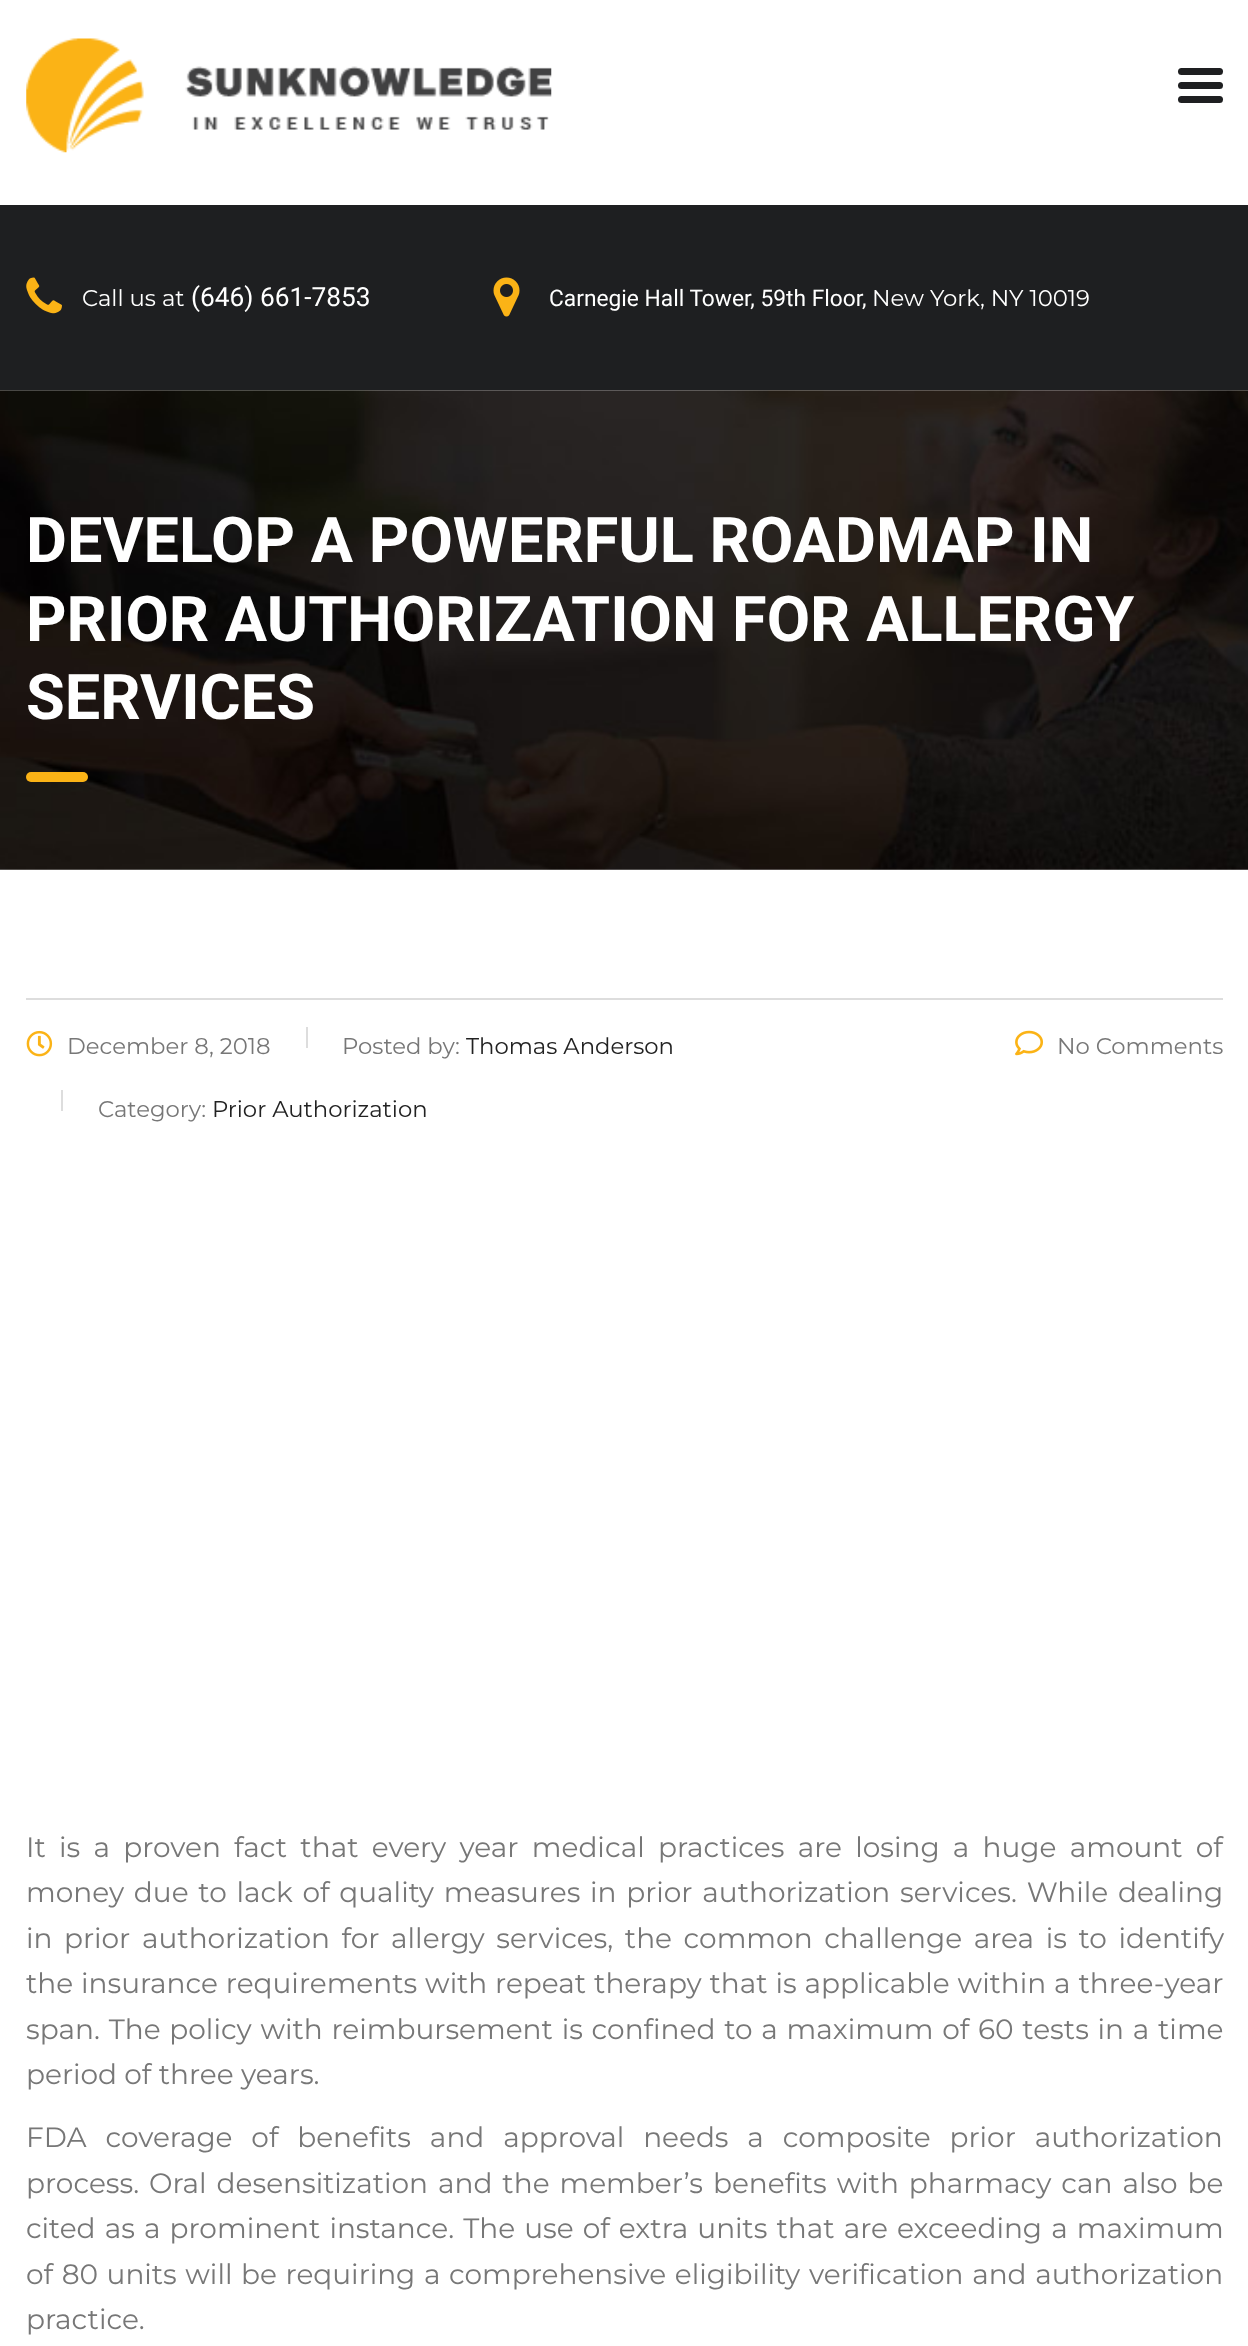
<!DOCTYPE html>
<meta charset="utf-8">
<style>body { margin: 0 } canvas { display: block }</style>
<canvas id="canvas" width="1248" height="2346"></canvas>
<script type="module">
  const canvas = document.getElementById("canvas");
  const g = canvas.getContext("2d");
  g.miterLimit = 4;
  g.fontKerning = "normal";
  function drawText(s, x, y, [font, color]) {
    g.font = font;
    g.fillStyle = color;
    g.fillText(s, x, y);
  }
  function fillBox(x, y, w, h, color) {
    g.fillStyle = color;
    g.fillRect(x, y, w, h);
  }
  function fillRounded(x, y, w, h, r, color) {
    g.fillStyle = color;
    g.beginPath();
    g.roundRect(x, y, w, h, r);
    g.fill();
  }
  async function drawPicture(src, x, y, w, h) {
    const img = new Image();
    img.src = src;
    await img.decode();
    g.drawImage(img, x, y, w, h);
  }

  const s1 = ["22.75px Montserrat", "#FFFFFF"];
  const s2 = ["26.25px Roboto", "#FFFFFF"];
  const s3 = ["22.75px Roboto", "#FFFFFF"];
  const s4 = ["bold 63px Roboto", "#FFFFFF"];
  const s5 = ["22.75px Montserrat", "#777777"];
  const s6 = ["22.75px Montserrat", "#222222"];
  const s7 = ["28px Montserrat", "#777777"];

  fillBox(0, 0, 1248, 2346, "#FFFFFF");
  await drawPicture("pic1.png", 26, 38, 526, 115);
  fillRounded(1178, 82, 45, 7, 3.5, "#1E1F21");
  fillRounded(1178, 68, 45, 7, 3.5, "#1E1F21");
  fillRounded(1178, 96, 45, 7, 3.5, "#1E1F21");
  fillBox(0, 205, 1248, 185, "#1E1F21");
  await drawPicture("pic2.png", 26, 277, 36, 37);
  drawText("Call us at", 82, 306, s1);
  drawText("(646) 661-7853", 191, 306, s2);
  await drawPicture("pic3.png", 493, 277, 27, 40);
  drawText("Carnegie Hall Tower, 59th Floor,", 549, 306, s3);
  drawText("New York, NY 10019", 872, 306, s1);
  await drawPicture("pic4.png", 0, 390, 1248, 480);
  drawText("DEVELOP A POWERFUL ROADMAP IN", 26, 562, s4);
  drawText("PRIOR AUTHORIZATION FOR ALLERGY", 26, 641, s4);
  drawText("SERVICES", 26, 719, s4);
  fillRounded(26, 772, 62, 10, 5, "#FBB316");
  fillBox(26, 998, 1197, 2, "#DDDDDD");
  await drawPicture("pic5.png", 26, 1030, 27, 27);
  drawText("December 8, 2018", 67, 1054, s5);
  fillBox(306, 1027, 2, 21, "#DDDDDD");
  drawText("Posted by:", 342, 1054, s5);
  drawText("Thomas Anderson", 466, 1054, s6);
  fillBox(61, 1090, 2, 21, "#DDDDDD");
  drawText("Category:", 98, 1117, s5);
  drawText("Prior Authorization", 212, 1117, s6);
  await drawPicture("pic6.png", 1015, 1030, 28, 26);
  drawText("No Comments", 1057, 1054, s5);
  g.wordSpacing = "5.9px";
  drawText("It is a proven fact that every year medical practices are losing a huge amount of", 26, 1857, s7);
  g.wordSpacing = "2.4px";
  drawText("money due to lack of quality measures in prior authorization services. While dealing", 26, 1902, s7);
  g.wordSpacing = "4.25px";
  drawText("in prior authorization for allergy services, the common challenge area is to identify", 26, 1948, s7);
  g.wordSpacing = "0.5px";
  drawText("the insurance requirements with repeat therapy that is applicable within a three-year", 26, 1993, s7);
  g.wordSpacing = "1.4px";
  drawText("span. The policy with reimbursement is confined to a maximum of 60 tests in a time", 26, 2039, s7);
  g.wordSpacing = "0px";
  drawText("period of three years.", 26, 2084, s7);
  g.wordSpacing = "11.5px";
  drawText("FDA coverage of benefits and approval needs a composite prior authorization", 26, 2147, s7);
  g.wordSpacing = "2.6px";
  drawText("process. Oral desensitization and the member’s benefits with pharmacy can also be", 26, 2193, s7);
  g.wordSpacing = "1.75px";
  drawText("cited as a prominent instance. The use of extra units that are exceeding a maximum", 26, 2238, s7);
  g.wordSpacing = "1.25px";
  drawText("of 80 units will be requiring a comprehensive eligibility verification and authorization", 26, 2284, s7);
  g.wordSpacing = "0px";
  drawText("practice.", 26, 2329, s7);
</script>
